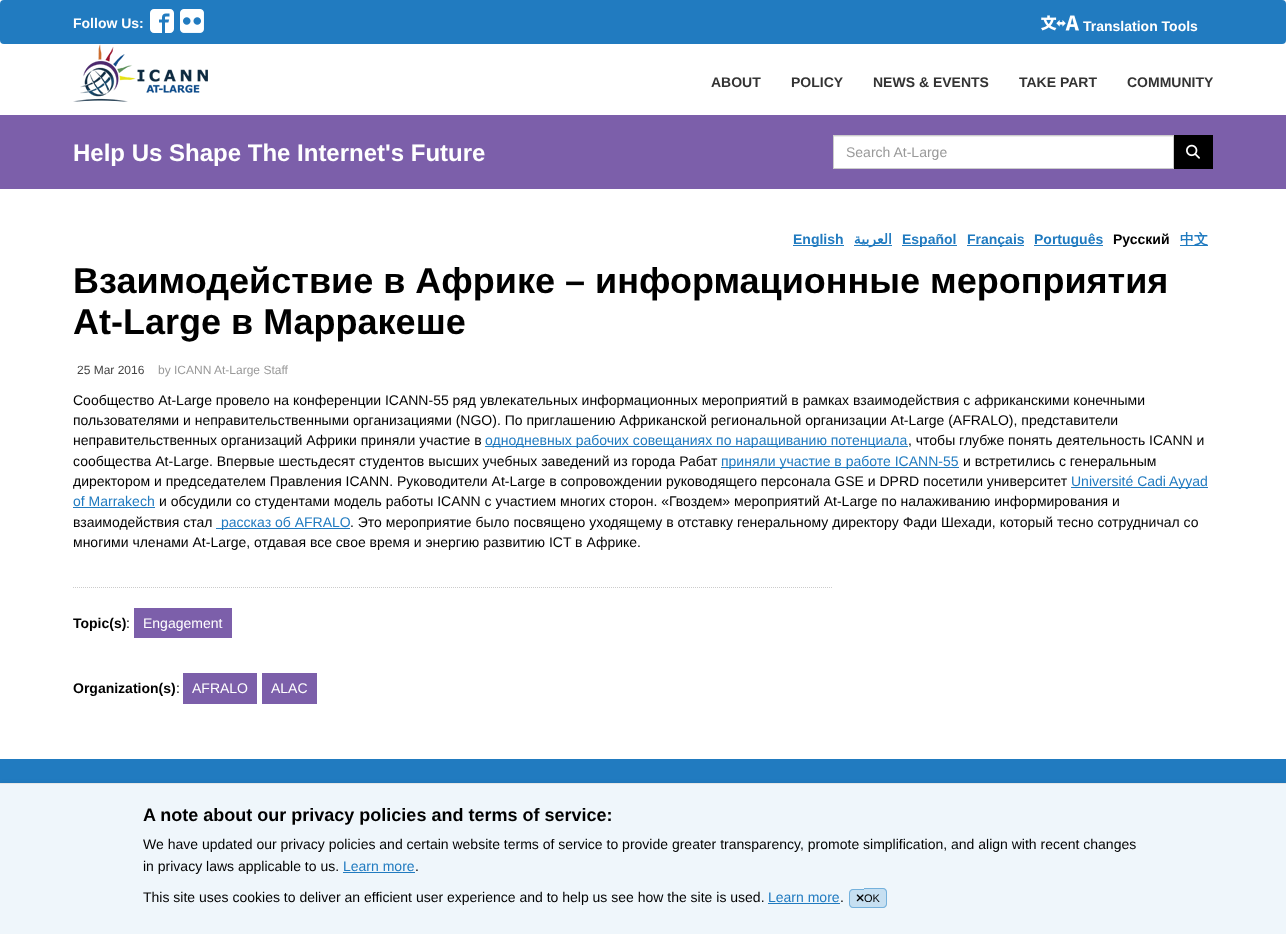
<!DOCTYPE html>
<meta charset="utf-8">
<style>body { margin: 0 } canvas { display: block }</style>
<canvas id="canvas" width="1286" height="934"></canvas>
<script type="module">
  const canvas = document.getElementById("canvas");
  const g = canvas.getContext("2d");
  g.miterLimit = 4;
  g.fontKerning = "normal";
  function drawText(s, x, y, [font, color]) {
    g.font = font;
    g.fillStyle = color;
    g.fillText(s, x, y);
  }
  function fillBox(x, y, w, h, color) {
    g.fillStyle = color;
    g.fillRect(x, y, w, h);
  }
  function fillRounded(x, y, w, h, r, color) {
    g.fillStyle = color;
    g.beginPath();
    g.roundRect(x, y, w, h, r);
    g.fill();
  }
  async function drawPicture(src, x, y, w, h) {
    const img = new Image();
    img.src = src;
    await img.decode();
    g.drawImage(img, x, y, w, h);
  }

  const s1 = ["bold 14px Liberation Sans", "#FFFFFF"];
  const s2 = ["bold 14px Liberation Sans", "#333333"];
  const s3 = ["bold 24px Liberation Sans", "#FFFFFF"];
  const s4 = ["14px Liberation Sans", "#999999"];
  const s5 = ["bold 14px Liberation Sans", "#217BC0"];
  const s6 = ["bold 14px DejaVu Sans", "#217BC0"];
  const s7 = ["bold 14px Liberation Sans", "#000000"];
  const s8 = ["bold 14px WenQuanYi Zen Hei", "#217BC0"];
  const s9 = ["bold 36px Liberation Sans", "#000000"];
  const s10 = ["12px Liberation Sans", "#454545"];
  const s11 = ["12px Liberation Sans", "#999999"];
  const s12 = ["14px Liberation Sans", "#000000"];
  const s13 = ["14px Liberation Sans", "#217BC0"];
  const s14 = ["14px Liberation Sans", "#FFFFFF"];
  const s15 = ["bold 18px Liberation Sans", "#000000"];
  const s16 = ["11px Liberation Sans", "#000000"];

  fillBox(0, 0, 1286, 934, "#FFFFFF");
  fillRounded(0, 0, 1286, 44, 4, "#217BC0");
  drawText("Follow Us:", 73, 28, s1);
  await drawPicture("pic1.png", 150, 9, 24, 24);
  await drawPicture("pic2.png", 180, 9, 24, 24);
  await drawPicture("pic3.png", 1041, 15, 38, 16);
  drawText("Translation Tools", 1083, 31, s1);
  await drawPicture("pic4.png", 73, 44, 135, 58);
  drawText("ABOUT", 711, 87, s2);
  drawText("POLICY", 791, 87, s2);
  drawText("NEWS & EVENTS", 873, 87, s2);
  drawText("TAKE PART", 1019, 87, s2);
  drawText("COMMUNITY", 1127, 87, s2);
  fillBox(0, 115, 1286, 74, "#7C5FAA");
  drawText("Help Us Shape The Internet's Future", 73, 161, s3);
  fillBox(834, 137, 339, 31, "#FFFFFF");
  fillBox(834, 136, 339, 1, "#ECECEC");
  g.strokeStyle = "#CCCCCC";
  g.strokeRect(833.5, 135.5, 340, 33);
  drawText("Search At-Large", 846, 157, s4);
  fillBox(1174, 135, 39, 34, "#000000");
  await drawPicture("pic5.png", 1186, 144, 14, 15);
  fillBox(793, 245, 51, 1, "#217BC0");
  drawText("English", 793, 244, s5);
  fillBox(854, 245, 38, 1, "#217BC0");
  g.direction = "rtl";
  drawText("العربية", 892, 244, s6);
  fillBox(902, 245, 55, 1, "#217BC0");
  g.direction = "ltr";
  drawText("Español", 902, 244, s5);
  fillBox(967, 245, 57, 1, "#217BC0");
  drawText("Français", 967, 244, s5);
  fillBox(1034, 245, 69, 1, "#217BC0");
  drawText("Português", 1034, 244, s5);
  drawText("Pусский", 1113, 244, s7);
  fillBox(1180, 245, 28, 1, "#217BC0");
  drawText("中文", 1180, 244, s8);
  drawText("Взаимодействие в Африке – информационные мероприятия", 73, 293, s9);
  drawText("At-Large в Марракеше", 73, 334, s9);
  drawText("25 Mar 2016", 77, 374, s10);
  drawText("by ICANN At-Large Staff", 158, 374, s11);
  drawText("Сообщество At-Large провело на конференции ICANN-55 ряд увлекательных информационных мероприятий в рамках взаимодействия с африканскими конечными", 73, 405, s12);
  drawText("пользователями и неправительственными организациями (NGO). По приглашению Африканской региональной организации At-Large (AFRALO), представители", 73, 425, s12);
  drawText("неправительственных организаций Африки приняли участие в", 73, 445, s12);
  fillBox(485, 446, 423, 1, "#217BC0");
  drawText("однодневных рабочих совещаниях по наращиванию потенциала", 485, 445, s13);
  drawText(", чтобы глубже понять деятельность ICANN и", 908, 445, s12);
  drawText("сообщества At-Large. Впервые шестьдесят студентов высших учебных заведений из города Рабат", 73, 466, s12);
  fillBox(721, 467, 238, 1, "#217BC0");
  drawText("приняли участие в работе ICANN-55", 721, 466, s13);
  drawText("и встретились с генеральным", 963, 466, s12);
  drawText("директором и председателем Правления ICANN. Руководители At-Large в сопровождении руководящего персонала GSE и DPRD посетили университет", 73, 486, s12);
  fillBox(1071, 487, 137, 1, "#217BC0");
  drawText("Université Cadi Ayyad", 1071, 486, s13);
  drawText("of Marrakech", 73, 506, s13);
  fillBox(73, 507, 82, 1, "#217BC0");
  drawText("и обсудили со студентами модель работы ICANN с участием многих сторон. «Гвоздем» мероприятий At-Large по налаживанию информирования и", 159, 506, s12);
  drawText("взаимодействия стал", 73, 527, s12);
  fillBox(216, 528, 134, 1, "#217BC0");
  drawText("рассказ об AFRALO", 221, 527, s13);
  drawText(". Это мероприятие было посвящено уходящему в отставку генеральному директору Фади Шехади, который тесно сотрудничал со", 350, 527, s12);
  drawText("многими членами At-Large, отдавая все свое время и энергию развитию ICT в Африке.", 73, 547, s12);
  g.beginPath();
  g.moveTo(73, 587.5);
  g.lineTo(833, 587.5);
  g.setLineDash([1, 1]);
  g.stroke();
  drawText("Topic(s)", 73, 628, s7);
  drawText(":", 126, 628, s12);
  fillBox(134, 608, 98, 30, "#7C5FAA");
  drawText("Engagement", 143, 628, s14);
  drawText("Organization(s)", 73, 693, s7);
  drawText(":", 176, 693, s12);
  fillBox(183, 673, 74, 31, "#7C5FAA");
  drawText("AFRALO", 192, 693, s14);
  fillBox(262, 673, 55, 31, "#7C5FAA");
  drawText("ALAC", 271, 693, s14);
  fillBox(0, 759, 1286, 24, "#217BC0");
  g.fillStyle = "rgba(0, 0, 0, 0.05)";
  g.filter = "blur(1.5px)";
  g.beginPath();
  g.rect(0, 782, 1286, 151);
  g.fill();
  g.filter = "none";
  fillBox(0, 784, 1286, 150, "#EFF6FB");
  fillBox(0, 783, 1286, 1, "#E6E6E6");
  drawText("A note about our privacy policies and terms of service:", 143, 821, s15);
  drawText("We have updated our privacy policies and certain website terms of service to provide greater transparency, promote simplification, and align with recent changes", 143, 849, s12);
  drawText("in privacy laws applicable to us.", 143, 871, s12);
  drawText("Learn more", 343, 871, s13);
  fillBox(343, 872, 72, 1, "#217BC0");
  drawText(".", 415, 871, s12);
  drawText("This site uses cookies to deliver an efficient user experience and to help us see how the site is used.", 143, 902, s12);
  drawText("Learn more", 768, 902, s13);
  fillBox(768, 903, 72, 1, "#217BC0");
  drawText(".", 840, 902, s12);
  g.fillStyle = "#C6DFF1";
  g.beginPath();
  g.roundRect(849, 889, 15, 19, [4, 0, 0, 4]);
  g.fill();
  g.fillStyle = "#75B1DC";
  g.beginPath();
  g.moveTo(853, 889);
  g.lineTo(864, 889);
  g.lineTo(864, 908);
  g.lineTo(853, 908);
  g.bezierCurveTo(851, 908, 849, 906, 849, 904);
  g.lineTo(849, 893);
  g.bezierCurveTo(849, 891, 851, 889, 853, 889);
  g.closePath();
  g.moveTo(853, 890);
  g.lineTo(864, 890);
  g.lineTo(864, 907);
  g.lineTo(853, 907);
  g.bezierCurveTo(851.5, 907, 850, 905.5, 850, 904);
  g.lineTo(850, 893);
  g.bezierCurveTo(850, 891.5, 851.5, 890, 853, 890);
  g.closePath();
  g.fill("evenodd");
  g.fillStyle = "#C6DFF1";
  g.beginPath();
  g.roundRect(864, 888, 23, 20, [0, 4, 4, 0]);
  g.fill();
  g.fillStyle = "#75B1DC";
  g.beginPath();
  g.moveTo(864, 888);
  g.lineTo(883, 888);
  g.bezierCurveTo(885, 888, 887, 890, 887, 892);
  g.lineTo(887, 904);
  g.bezierCurveTo(887, 906, 885, 908, 883, 908);
  g.lineTo(864, 908);
  g.closePath();
  g.moveTo(864, 889);
  g.lineTo(883, 889);
  g.bezierCurveTo(884.5, 889, 886, 890.5, 886, 892);
  g.lineTo(886, 904);
  g.bezierCurveTo(886, 905.5, 884.5, 907, 883, 907);
  g.lineTo(864, 907);
  g.closePath();
  g.fill("evenodd");
  await drawPicture("pic6.png", 856, 894, 8, 8);
  drawText("OK", 864, 902, s16);
</script>
